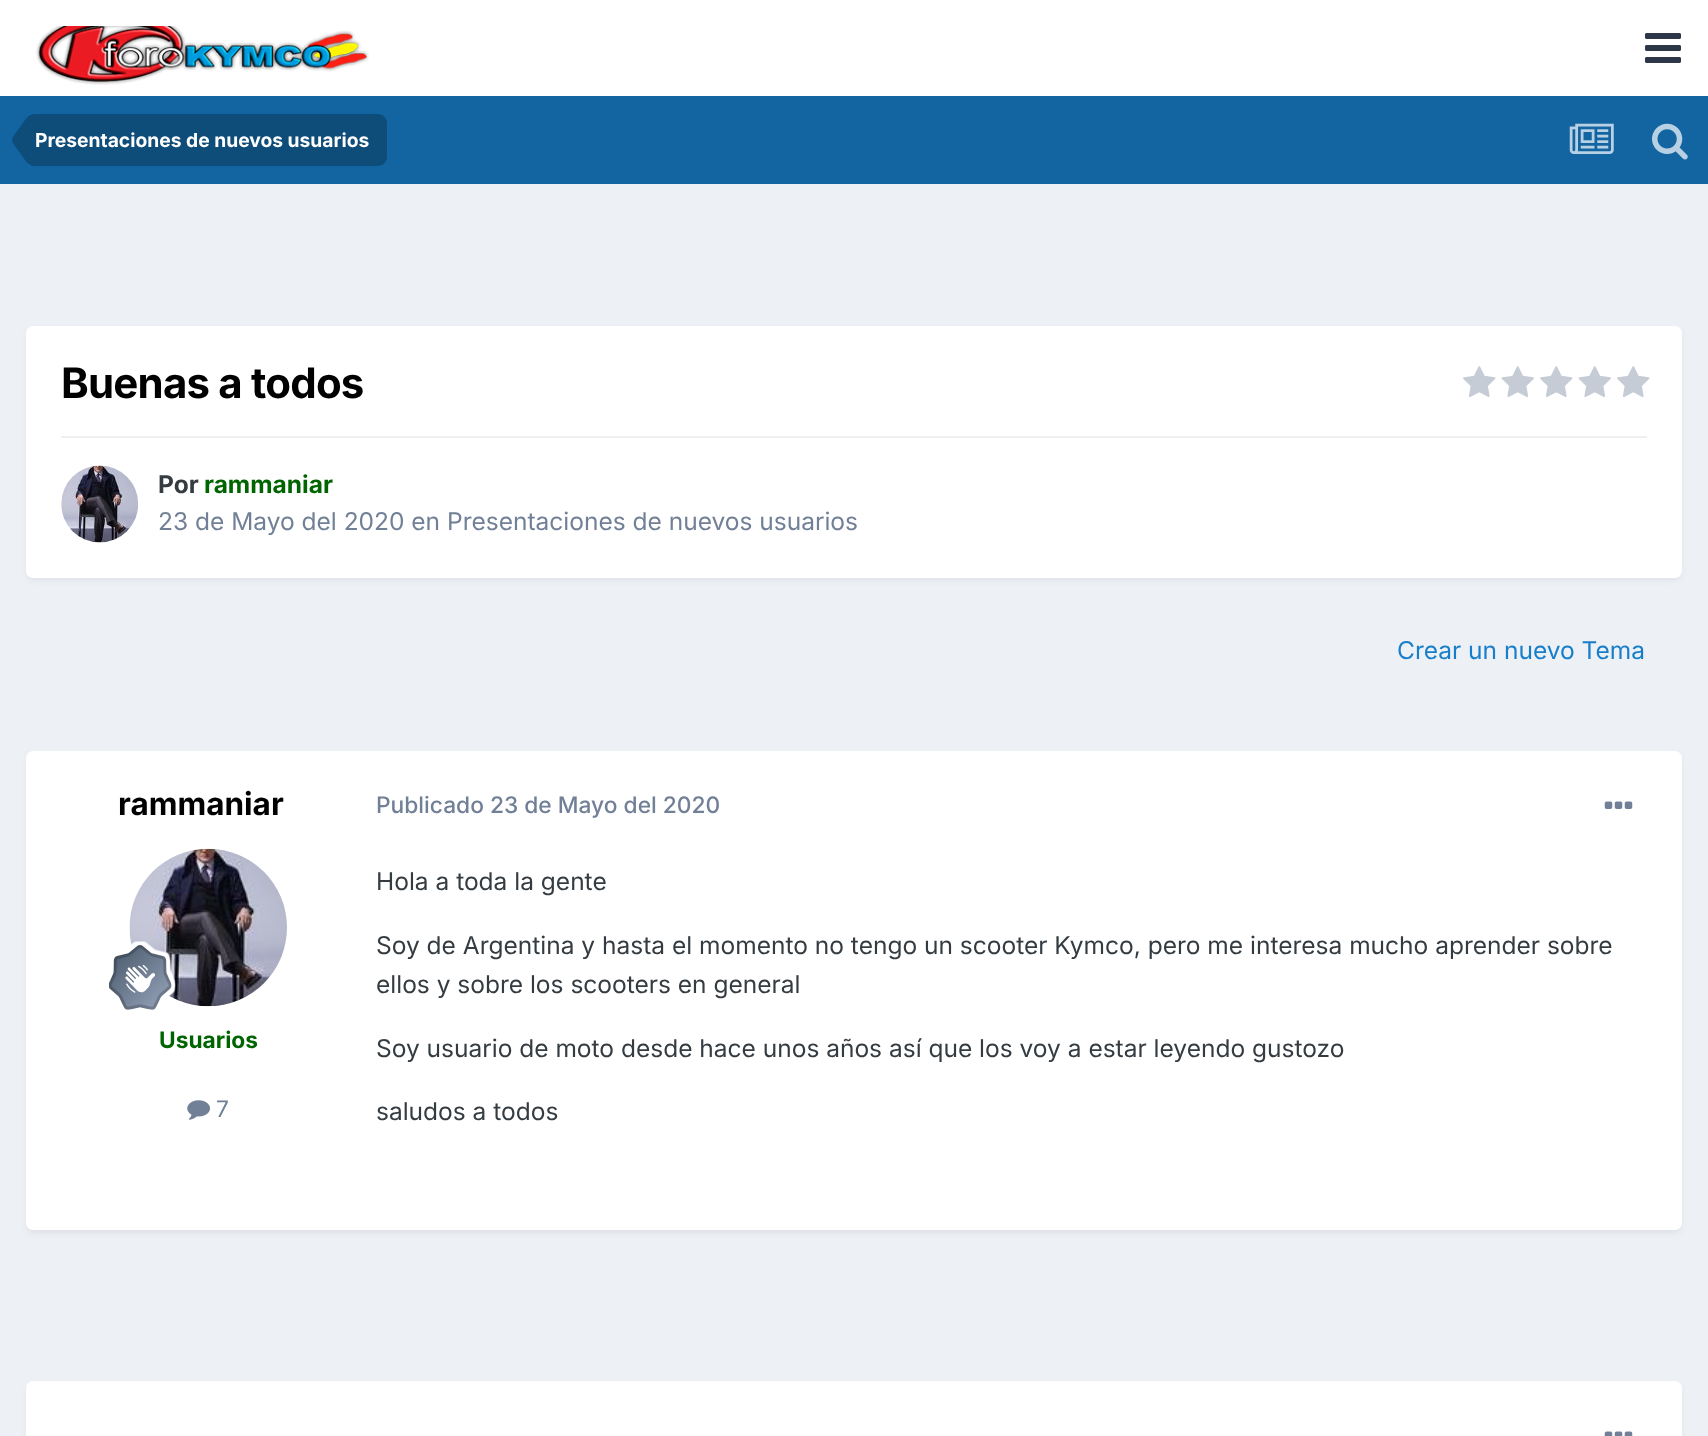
<!DOCTYPE html>
<meta charset="utf-8">
<style>body { margin: 0 } canvas { display: block }</style>
<canvas id="canvas" width="1708" height="1436"></canvas>
<script type="module">
  const canvas = document.getElementById("canvas");
  const g = canvas.getContext("2d");
  g.miterLimit = 4;
  g.fontKerning = "normal";
  function drawText(s, x, y, [font, color]) {
    g.font = font;
    g.fillStyle = color;
    g.fillText(s, x, y);
  }
  function fillBox(x, y, w, h, color) {
    g.fillStyle = color;
    g.fillRect(x, y, w, h);
  }
  function fillRounded(x, y, w, h, r, color) {
    g.fillStyle = color;
    g.beginPath();
    g.roundRect(x, y, w, h, r);
    g.fill();
  }
  async function drawPicture(src, x, y, w, h) {
    const img = new Image();
    img.src = src;
    await img.decode();
    g.drawImage(img, x, y, w, h);
  }

  const s1 = ["bold 19.25px Inter", "#FFFFFF"];
  const s2 = ["bold 42px Inter", "#000000"];
  const s3 = ["bold 24.5px Inter", "#353C41"];
  const s4 = ["bold 24.5px Inter", "#006400"];
  const s5 = ["24.5px Inter", "#718096"];
  const s6 = ["24.5px Inter", "#177EC9"];
  const s7 = ["bold 31.5px Inter", "#000000"];
  const s8 = ["bold 22.75px Inter", "#006400"];
  const s9 = ["22.75px Inter", "#718096"];
  const s10 = ["500 22.75px Inter", "#718096"];
  const s11 = ["24.5px Inter", "#353C41"];

  fillBox(0, 0, 1708, 1436, "#EDF0F4");
  fillBox(0, 0, 1708, 96, "#FFFFFF");
  await drawPicture("pic1.png", 36, 26, 333, 59);
  await drawPicture("pic2.png", 1645, 33, 36, 30);
  fillBox(0, 96, 1708, 88, "#1265A1");
  g.fillStyle = "#0E4C79";
  g.beginPath();
  g.roundRect(35, 114, 352, 52, [0, 9, 9, 0]);
  g.fill();
  g.beginPath();
  g.moveTo(35, 140);
  g.lineTo(35, 166);
  g.bezierCurveTo(31, 166, 27.5, 164, 25, 160);
  g.lineTo(12.5, 142.5);
  g.lineTo(12, 140);
  g.closePath();
  g.moveTo(35, 140);
  g.lineTo(12, 140);
  g.lineTo(12.5, 137.5);
  g.lineTo(25, 120);
  g.bezierCurveTo(27.5, 116, 31, 114, 35, 114);
  g.closePath();
  g.fill();
  drawText("Presentaciones de nuevos usuarios", 35, 147, s1);
  await drawPicture("pic3.png", 1569, 123, 45, 31);
  await drawPicture("pic4.png", 1652, 123, 36, 37);
  g.fillStyle = "rgba(45, 55, 72, 0.1)";
  g.filter = "blur(3.5px)";
  g.beginPath();
  g.roundRect(28, 331, 1652, 248, 5);
  g.fill();
  g.filter = "none";
  fillRounded(26, 326, 1656, 252, 7, "#FFFFFF");
  g.letterSpacing = "-0.8px";
  drawText("Buenas a todos", 61, 398, s2);
  await drawPicture("pic5.png", 1463, 366, 33, 31);
  await drawPicture("pic6.png", 1501, 366, 33, 31);
  await drawPicture("pic5.png", 1540, 366, 33, 31);
  await drawPicture("pic6.png", 1578, 366, 33, 31);
  await drawPicture("pic5.png", 1617, 366, 33, 31);
  fillBox(61, 436, 1586, 2, "#EFEFF0");
  await drawPicture("pic7.png", 61, 465, 78, 78);
  g.letterSpacing = "0px";
  drawText("Por", 158, 493, s3);
  drawText("rammaniar", 204, 493, s4);
  drawText("23 de Mayo del 2020 en Presentaciones de nuevos usuarios", 158, 530, s5);
  drawText("Crear un nuevo Tema", 1397, 659, s6);
  g.fillStyle = "rgba(45, 55, 72, 0.1)";
  g.filter = "blur(3.5px)";
  g.beginPath();
  g.roundRect(28, 756, 1652, 476, 5);
  g.fill();
  g.filter = "none";
  fillRounded(26, 751, 1656, 479, 7, "#FFFFFF");
  drawText("rammaniar", 118, 815, s7);
  await drawPicture("pic8.png", 129, 848, 158, 159);
  await drawPicture("pic9.png", 109, 941, 67, 69);
  drawText("Usuarios", 159, 1048, s8);
  await drawPicture("pic10.png", 187, 1100, 23, 20);
  drawText("7", 216, 1117, s9);
  drawText("Publicado 23 de Mayo del 2020", 376, 813, s10);
  await drawPicture("pic11.png", 1604, 801, 29, 8);
  drawText("Hola a toda la gente", 376, 890, s11);
  drawText("Soy de Argentina y hasta el momento no tengo un scooter Kymco, pero me interesa mucho aprender sobre", 376, 954, s11);
  drawText("ellos y sobre los scooters en general", 376, 993, s11);
  drawText("Soy usuario de moto desde hace unos años así que los voy a estar leyendo gustozo", 376, 1057, s11);
  drawText("saludos a todos", 376, 1120, s11);
  g.fillStyle = "rgba(45, 55, 72, 0.1)";
  g.filter = "blur(3.5px)";
  g.beginPath();
  g.roundRect(28, 1386, 1652, 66, 5);
  g.fill();
  g.filter = "none";
  fillRounded(26, 1381, 1656, 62, 7, "#FFFFFF");
  await drawPicture("pic12.png", 1604, 1431, 29, 5);
</script>
